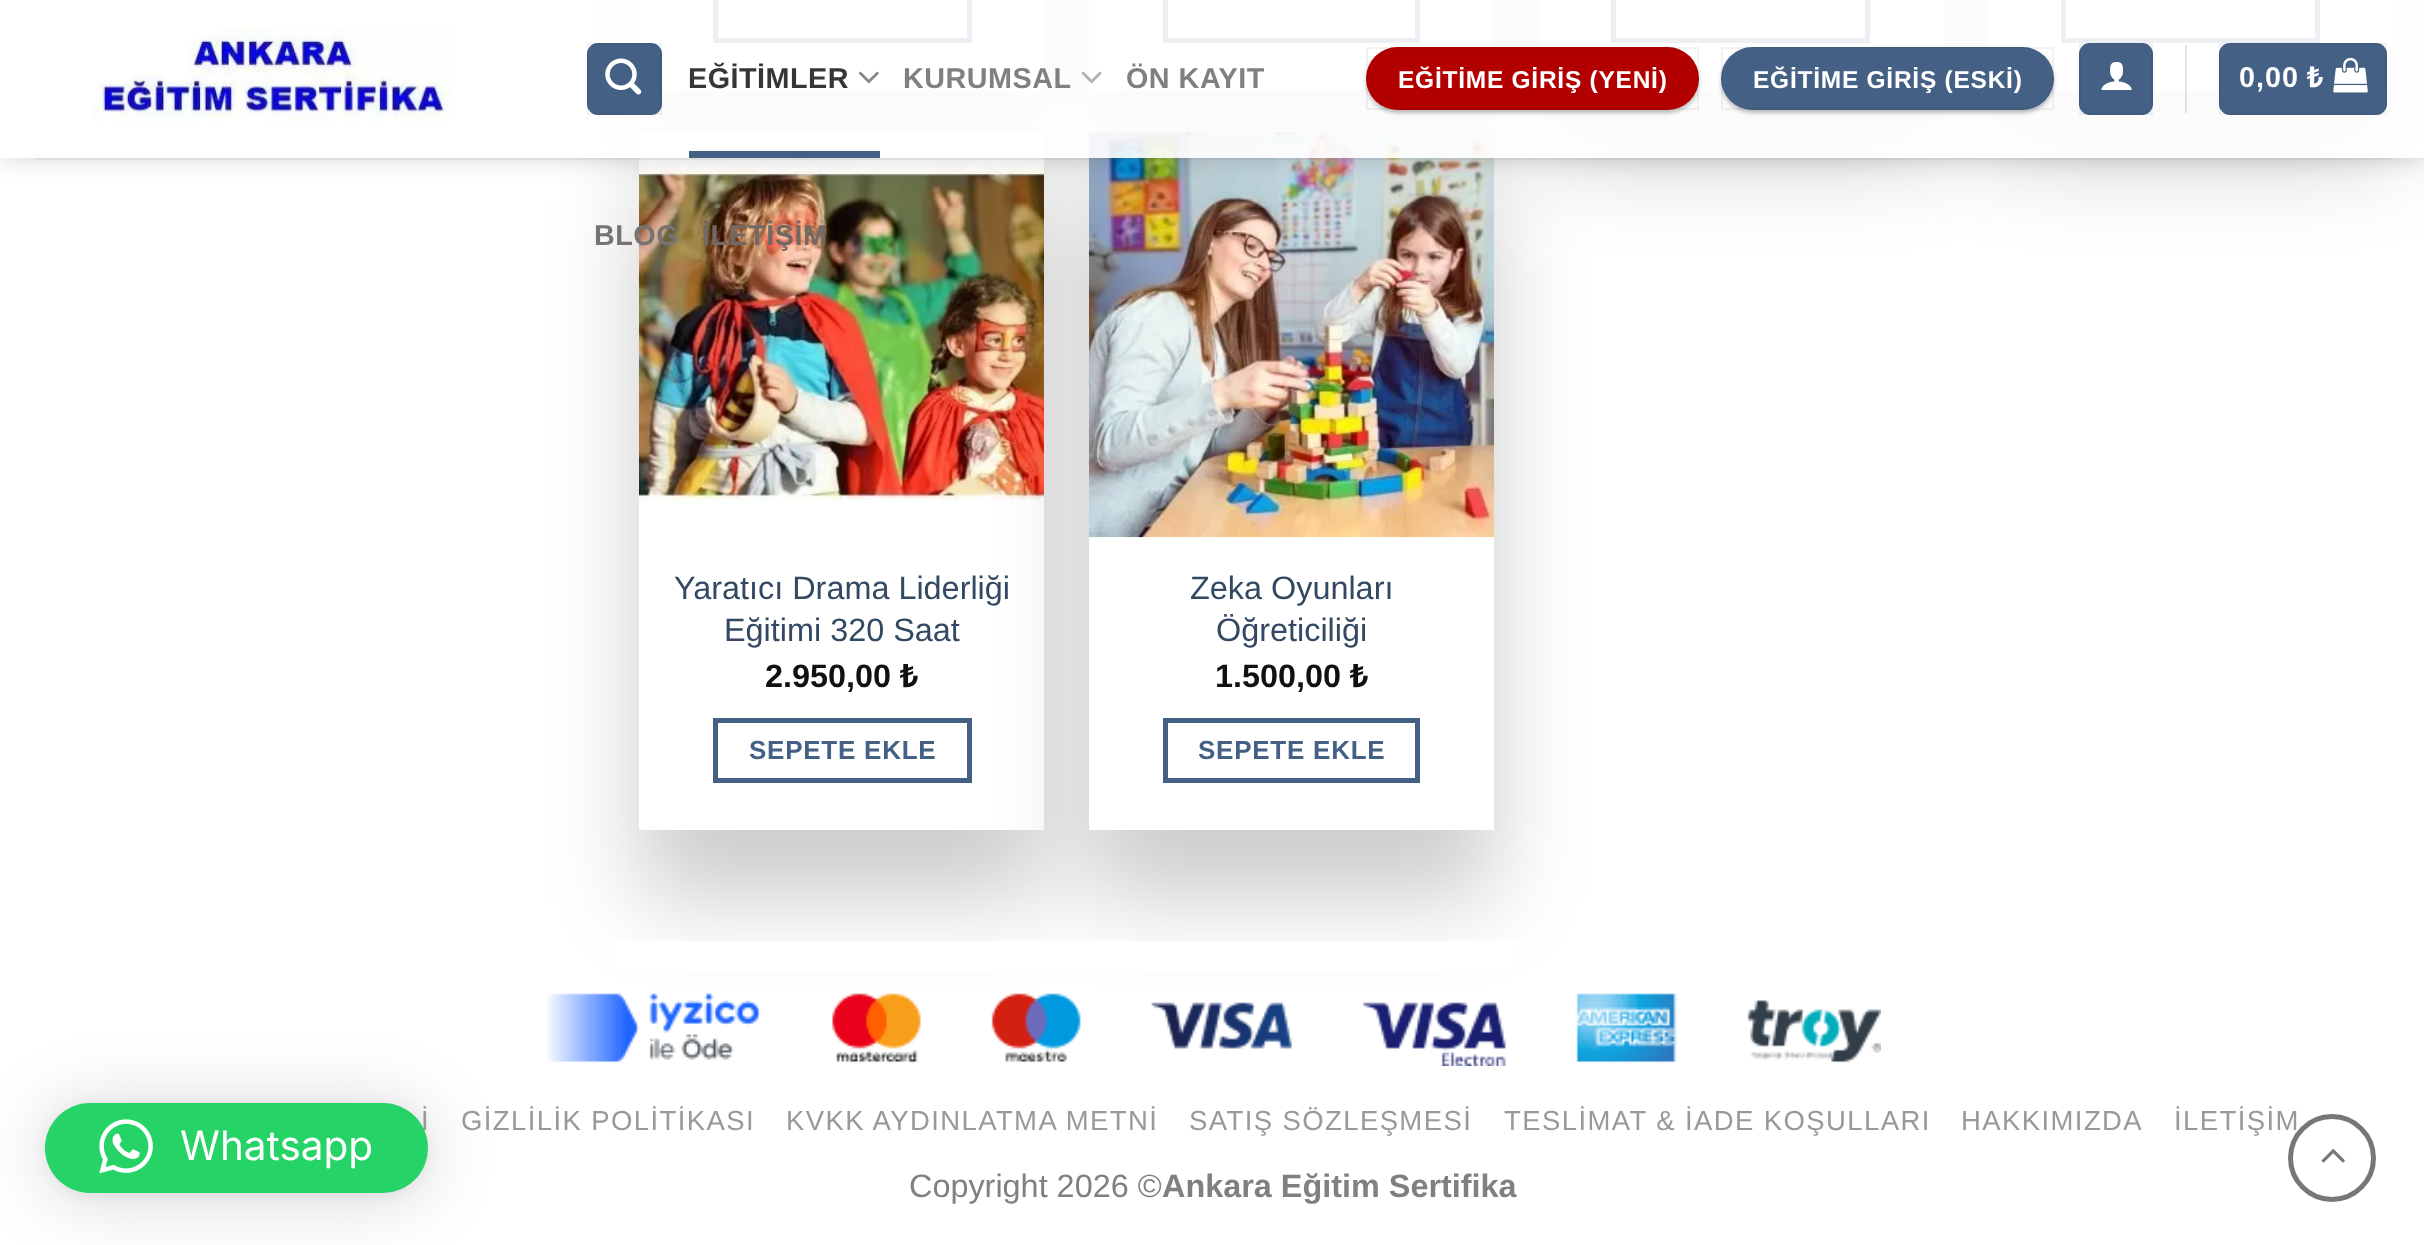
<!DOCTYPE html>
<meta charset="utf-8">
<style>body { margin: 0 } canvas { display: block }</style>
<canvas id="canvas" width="2424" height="1245"></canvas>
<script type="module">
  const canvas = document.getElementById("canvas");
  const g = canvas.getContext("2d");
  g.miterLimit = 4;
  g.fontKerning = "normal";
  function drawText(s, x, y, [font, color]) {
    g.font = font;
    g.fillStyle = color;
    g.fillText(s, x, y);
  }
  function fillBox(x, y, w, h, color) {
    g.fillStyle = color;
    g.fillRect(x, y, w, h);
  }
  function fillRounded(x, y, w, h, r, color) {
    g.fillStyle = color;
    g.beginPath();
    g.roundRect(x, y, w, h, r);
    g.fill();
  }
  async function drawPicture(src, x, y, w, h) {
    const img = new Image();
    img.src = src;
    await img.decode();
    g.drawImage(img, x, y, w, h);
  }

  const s1 = ["27.5px Liberation Sans", "#999999"];
  const s2 = ["40.5px Inter", "#FFFFFF"];
  const s3 = ["bold 28.75px Liberation Sans", "#363636"];
  const s4 = ["bold 28.75px Liberation Sans", "#808080"];
  const s5 = ["bold 28.75px Liberation Sans", "#767371"];
  const s6 = ["bold 28.75px Liberation Sans", "#726964"];
  const s7 = ["bold 24.5px Liberation Sans", "#FFFFFF"];
  const s8 = ["bold 28.75px Liberation Sans", "#FFFFFF"];
  const s9 = ["bold 28.75px Noto Sans", "#FFFFFF"];
  const s10 = ["32.4px Liberation Sans", "#334862"];
  const s11 = ["bold 32.4px Liberation Sans", "#111111"];
  const s12 = ["bold 32.4px Noto Sans", "#111111"];
  const s13 = ["bold 26px Liberation Sans", "#446084"];
  const s14 = ["32.4px Liberation Sans", "#808080"];
  const s15 = ["bold 32.4px Liberation Sans", "#808080"];

  fillBox(0, 0, 2424, 1245, "#FFFFFF");
  g.fillStyle = "rgba(0, 0, 0, 0.16)";
  g.filter = "blur(36px)";
  g.beginPath();
  g.roundRect(45, 1107, 383, 90, 45);
  g.fill();
  g.filter = "none";
  g.fillStyle = "rgba(0, 0, 0, 0.06)";
  g.filter = "blur(7px)";
  g.beginPath();
  g.roundRect(45, 1105, 383, 90, 45);
  g.fill();
  g.filter = "none";
  g.letterSpacing = "1.4px";
  drawText("İ", 421, 1130, s1);
  fillRounded(45, 1103, 383, 90, 45, "#25D366");
  await drawPicture("pic1.png", 99, 1119, 54, 55);
  g.letterSpacing = "0px";
  drawText("Whatsapp", 180, 1160, s2);
  g.save();
  g.beginPath();
  g.moveTo(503, 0);
  g.lineTo(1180, 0);
  g.lineTo(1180, 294);
  g.lineTo(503, 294);
  g.closePath();
  g.moveTo(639, -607);
  g.lineTo(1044, -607);
  g.lineTo(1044, 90);
  g.lineTo(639, 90);
  g.closePath();
  g.clip("evenodd");
  g.fillStyle = "rgba(0, 0, 0, 0.2)";
  g.filter = "blur(45px)";
  g.beginPath();
  g.rect(639, -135, 405, 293);
  g.fill();
  g.filter = "none";
  g.restore();
  g.strokeStyle = "#446084";
  g.lineWidth = 5;
  g.strokeRect(715.5, -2.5, 254, 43);
  g.fillStyle = "rgba(0, 0, 0, 0.2)";
  g.filter = "blur(45px)";
  g.beginPath();
  g.rect(1089, -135, 405, 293);
  g.fill();
  g.filter = "none";
  fillBox(1089, 0, 405, 90, "#FFFFFF");
  g.strokeRect(1165.5, -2.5, 252, 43);
  g.fillStyle = "rgba(0, 0, 0, 0.2)";
  g.filter = "blur(45px)";
  g.beginPath();
  g.rect(1539, -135, 405, 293);
  g.fill();
  g.filter = "none";
  fillBox(1539, 0, 405, 90, "#FFFFFF");
  g.strokeRect(1613.5, -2.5, 254, 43);
  g.fillStyle = "rgba(0, 0, 0, 0.2)";
  g.filter = "blur(45px)";
  g.beginPath();
  g.rect(1987, -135, 405, 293);
  g.fill();
  g.filter = "none";
  fillBox(1987, 0, 405, 90, "#FFFFFF");
  g.strokeRect(2063.5, -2.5, 254, 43);
  g.fillStyle = "rgba(0, 0, 0, 0.2)";
  g.filter = "blur(45px)";
  g.beginPath();
  g.rect(639, 200, 405, 698);
  g.fill();
  g.filter = "none";
  await drawPicture("pic8.png", 639, 132, 405, 371);
  fillBox(639, 503, 405, 327, "#FFFFFF");
  g.strokeRect(715.5, 720.5, 254, 60);
  g.fillStyle = "rgba(0, 0, 0, 0.2)";
  g.filter = "blur(45px)";
  g.beginPath();
  g.rect(1089, 200, 405, 698);
  g.fill();
  g.filter = "none";
  fillBox(1089, 537, 405, 293, "#FFFFFF");
  await drawPicture("pic9.png", 1089, 132, 405, 406);
  g.save();
  g.beginPath();
  g.moveTo(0, 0);
  g.lineTo(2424, 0);
  g.lineTo(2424, 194);
  g.lineTo(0, 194);
  g.closePath();
  g.moveTo(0, 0);
  g.lineTo(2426, 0);
  g.lineTo(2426, 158);
  g.lineTo(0, 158);
  g.closePath();
  g.clip("evenodd");
  g.fillStyle = "rgba(0, 0, 0, 0.15)";
  g.filter = "blur(11px)";
  g.beginPath();
  g.rect(2, 2, 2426, 158);
  g.fill();
  g.filter = "none";
  g.restore();
  fillBox(0, 0, 2424, 158, "rgba(255, 255, 255, 0.9)");
  await drawPicture("pic2.png", 89, 27, 363, 95);
  fillRounded(587, 43, 75, 72, 11, "#446084");
  g.strokeStyle = "rgba(0, 0, 0, 0.05)";
  g.lineWidth = 2;
  g.strokeRect(588, 44, 73, 70);
  await drawPicture("pic3.png", 605, 58, 37, 37);
  g.letterSpacing = "0.5px";
  drawText("EĞİTİMLER", 688, 88, s3);
  await drawPicture("pic4.png", 858, 71, 21, 13);
  fillBox(689, 151, 191, 7, "#446084");
  drawText("KURUMSAL", 903, 88, s4);
  await drawPicture("pic5.png", 1081, 71, 21, 13);
  drawText("ÖN KAYIT", 1126, 88, s4);
  drawText("BLOG", 594, 245, s5);
  drawText("İLETİŞİM", 702, 245, s6);
  g.fillStyle = "rgba(0, 0, 0, 0.24)";
  g.filter = "blur(2px)";
  g.beginPath();
  g.roundRect(1366, 50, 333, 63, 31.5);
  g.fill();
  g.filter = "none";
  g.fillStyle = "rgba(0, 0, 0, 0.12)";
  g.filter = "blur(3.5px)";
  g.beginPath();
  g.roundRect(1370, 54, 324, 54, 27);
  g.fill();
  g.filter = "none";
  fillRounded(1366, 47, 333, 63, 31.5, "#B20000");
  g.strokeRect(1367, 48, 331, 61);
  g.letterSpacing = "0.75px";
  drawText("EĞİTİME GİRİŞ (YENİ)", 1398, 88, s7);
  g.fillStyle = "rgba(0, 0, 0, 0.24)";
  g.filter = "blur(2px)";
  g.beginPath();
  g.roundRect(1721, 50, 333, 63, 31.5);
  g.fill();
  g.filter = "none";
  g.fillStyle = "rgba(0, 0, 0, 0.12)";
  g.filter = "blur(3.5px)";
  g.beginPath();
  g.roundRect(1726, 54, 324, 54, 27);
  g.fill();
  g.filter = "none";
  fillRounded(1721, 47, 333, 63, 31.5, "#446084");
  g.strokeRect(1722, 48, 331, 61);
  drawText("EĞİTİME GİRİŞ (ESKİ)", 1753, 88, s7);
  fillRounded(2079, 43, 74, 72, 11, "#446084");
  g.strokeRect(2080, 44, 72, 70);
  await drawPicture("pic6.png", 2101, 61, 31, 29);
  fillBox(2185, 45, 2, 68, "rgba(0, 0, 0, 0.1)");
  fillRounded(2219, 43, 168, 72, 11, "#446084");
  g.strokeRect(2220, 44, 166, 70);
  g.letterSpacing = "1px";
  drawText("0,00", 2239, 87, s8);
  drawText("₺", 2307, 87, s9);
  await drawPicture("pic7.png", 2333, 57, 35, 36);
  fillBox(34, 158, 2358, 2, "rgba(119, 119, 119, 0.1)");
  g.letterSpacing = "0px";
  drawText("Yaratıcı Drama Liderliği", 674, 599, s10);
  drawText("Eğitimi 320 Saat", 724, 641, s10);
  drawText("2.950,00", 765, 687, s11);
  drawText("₺", 900, 687, s12);
  g.letterSpacing = "0.75px";
  drawText("SEPETE EKLE", 749, 759, s13);
  g.letterSpacing = "0px";
  drawText("Zeka Oyunları", 1190, 599, s10);
  drawText("Öğreticiliği", 1216, 641, s10);
  drawText("1.500,00", 1215, 687, s11);
  drawText("₺", 1350, 687, s12);
  g.strokeStyle = "#446084";
  g.lineWidth = 5;
  g.strokeRect(1165.5, 720.5, 252, 60);
  g.letterSpacing = "0.75px";
  drawText("SEPETE EKLE", 1198, 759, s13);
  fillBox(615, 941, 903, 31, "#FFFFFF");
  await drawPicture("pic10.png", 547, 993, 1334, 73);
  g.letterSpacing = "1.4px";
  drawText("GİZLİLİK POLİTİKASI", 461, 1130, s1);
  drawText("KVKK AYDINLATMA METNİ", 786, 1130, s1);
  drawText("SATIŞ SÖZLEŞMESİ", 1189, 1130, s1);
  drawText("TESLİMAT & İADE KOŞULLARI", 1504, 1130, s1);
  drawText("HAKKIMIZDA", 1961, 1130, s1);
  drawText("İLETİŞİM", 2174, 1130, s1);
  g.letterSpacing = "0px";
  drawText("Copyright 2026 ©", 909, 1197, s14);
  drawText("Ankara Eğitim Sertifika", 1162, 1197, s15);
  g.beginPath();
  g.arc(2332, 1158, 41.5, 0, Math.PI * 2);
  g.strokeStyle = "#777777";
  g.stroke();
  await drawPicture("pic11.png", 2321, 1149, 24, 14);
</script>
